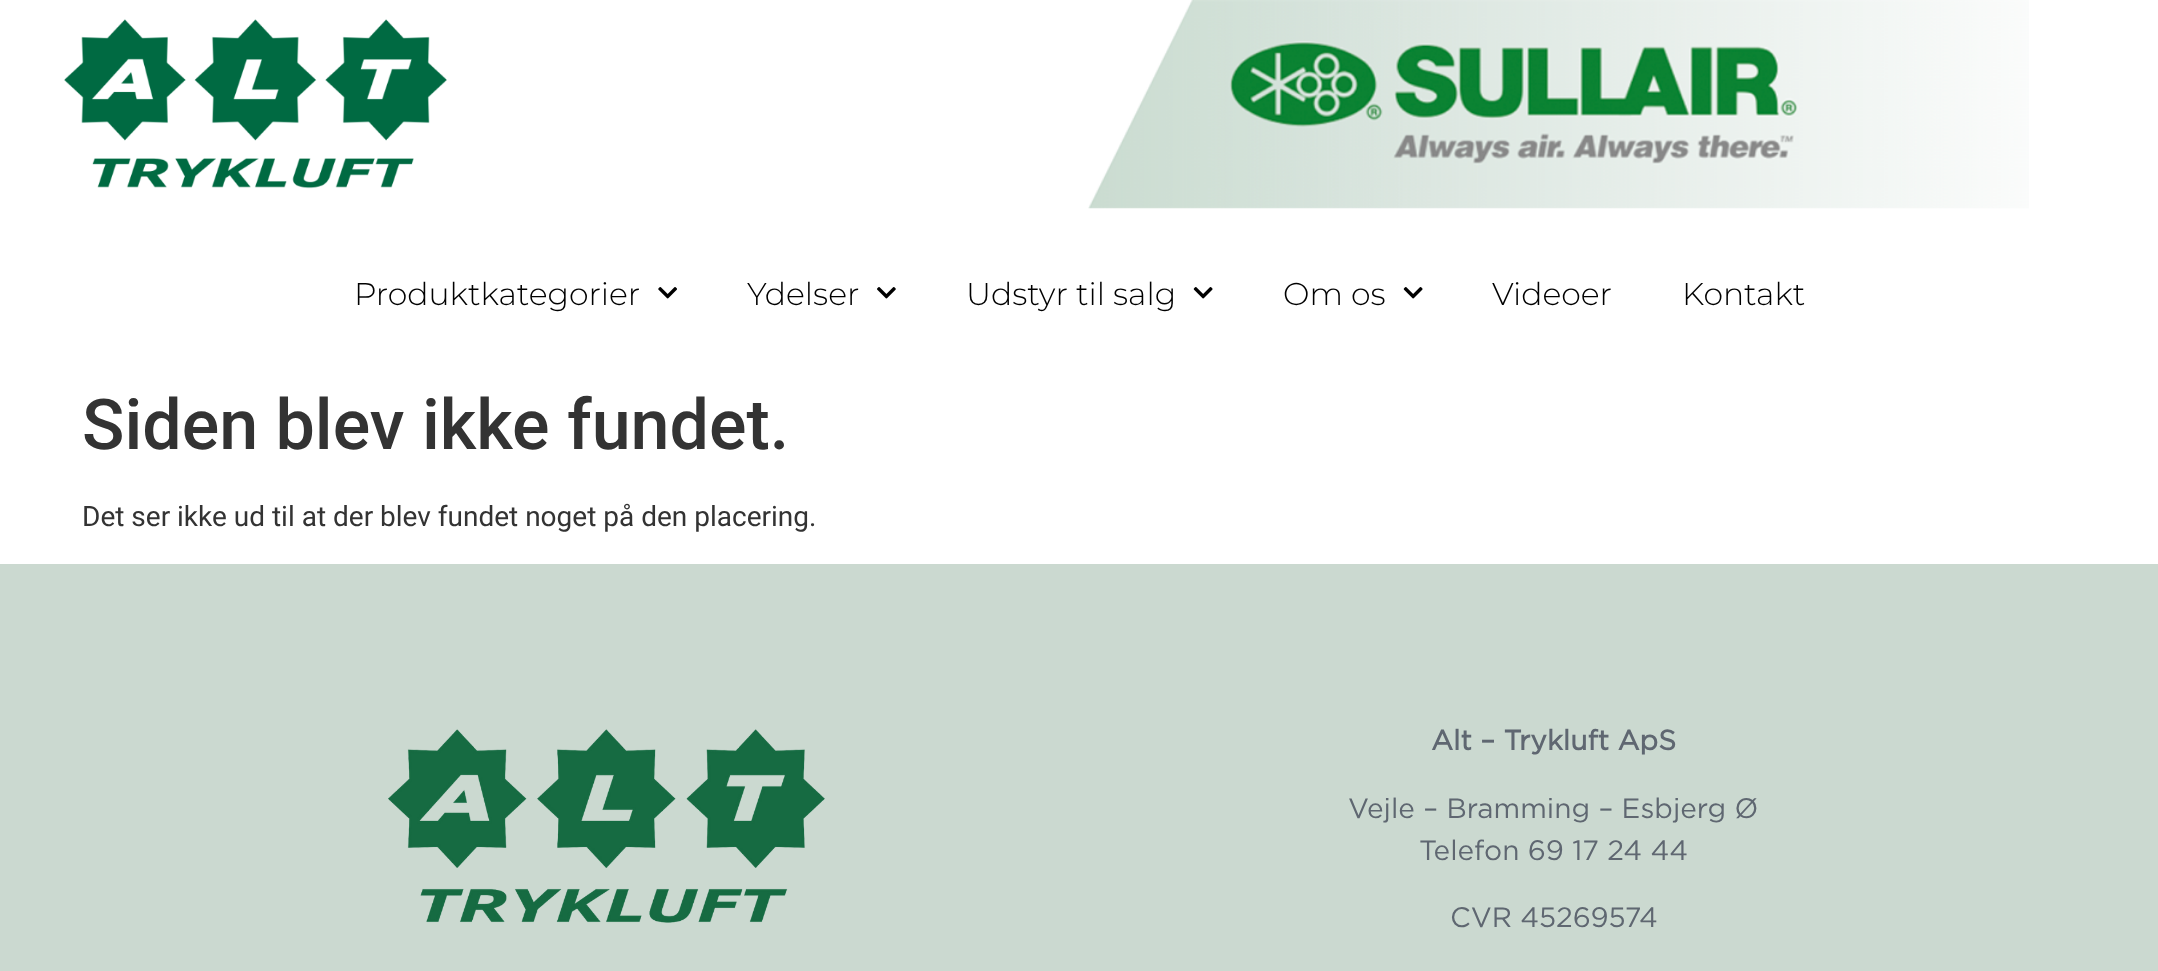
<!DOCTYPE html>
<meta charset="utf-8">
<style>body { margin: 0 } canvas { display: block }</style>
<canvas id="canvas" width="2158" height="971"></canvas>
<script type="module">
  const canvas = document.getElementById("canvas");
  const g = canvas.getContext("2d");
  g.miterLimit = 4;
  g.fontKerning = "normal";
  function drawText(s, x, y, [font, color]) {
    g.font = font;
    g.fillStyle = color;
    g.fillText(s, x, y);
  }
  function fillBox(x, y, w, h, color) {
    g.fillStyle = color;
    g.fillRect(x, y, w, h);
  }
  async function drawPicture(src, x, y, w, h) {
    const img = new Image();
    img.src = src;
    await img.decode();
    g.drawImage(img, x, y, w, h);
  }

  const s1 = ["300 31.5px Montserrat", "#000000"];
  const s2 = ["500 70px Roboto", "#333333"];
  const s3 = ["28px Roboto", "#333333"];
  const s4 = ["bold 28px Gotham", "#5F6771"];
  const s5 = ["28px Gotham", "#5F6771"];

  fillBox(0, 0, 2158, 971, "#FFFFFF");
  await drawPicture("pic1.png", 64, 19, 383, 170);
  await drawPicture("pic2.png", 1088, 0, 941, 209);
  drawText("Produktkategorier", 354, 305, s1);
  await drawPicture("pic3.png", 658, 287, 19, 12);
  drawText("Ydelser", 747, 305, s1);
  await drawPicture("pic4.png", 877, 287, 19, 12);
  drawText("Udstyr til salg", 966, 305, s1);
  await drawPicture("pic5.png", 1193, 287, 20, 12);
  drawText("Om os", 1283, 305, s1);
  await drawPicture("pic5.png", 1403, 287, 20, 12);
  drawText("Videoer", 1492, 305, s1);
  drawText("Kontakt", 1682, 305, s1);
  drawText("Siden blev ikke fundet.", 82, 449, s2);
  drawText("Det ser ikke ud til at der blev fundet noget på den placering.", 82, 526, s3);
  fillBox(0, 564, 2158, 407, "#CBD9D0");
  await drawPicture("pic6.png", 388, 729, 437, 194);
  drawText("Alt – Trykluft ApS", 1431, 750, s4);
  drawText("Vejle – Bramming – Esbjerg Ø", 1348, 818, s5);
  drawText("Telefon 69 17 24 44", 1419, 860, s5);
  drawText("CVR 45269574", 1450, 927, s5);
</script>
